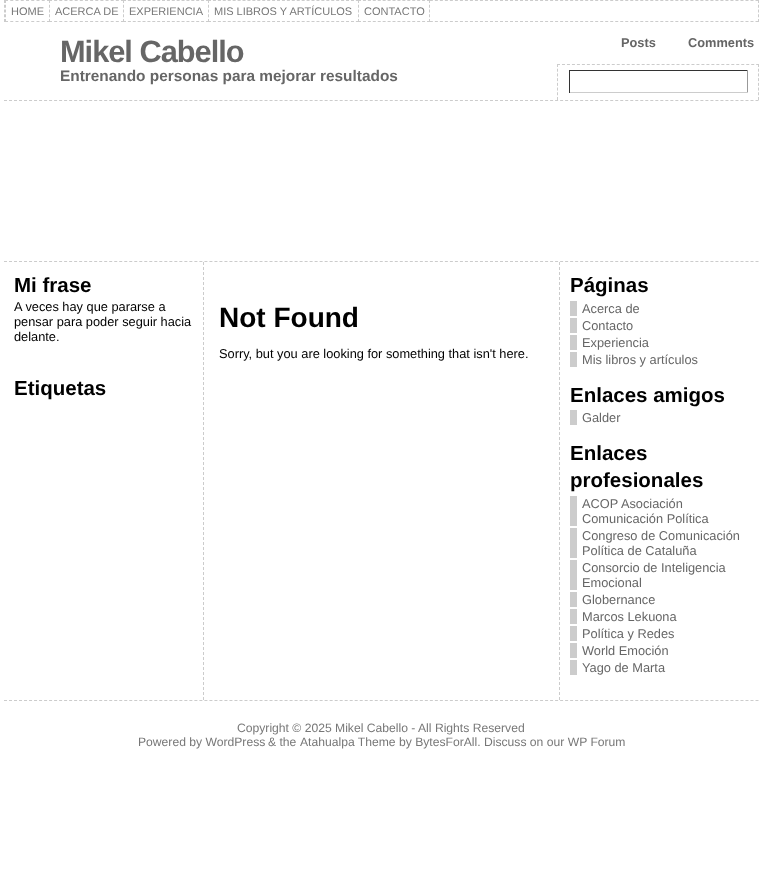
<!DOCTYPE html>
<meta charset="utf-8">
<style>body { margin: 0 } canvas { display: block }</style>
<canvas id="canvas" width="763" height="896"></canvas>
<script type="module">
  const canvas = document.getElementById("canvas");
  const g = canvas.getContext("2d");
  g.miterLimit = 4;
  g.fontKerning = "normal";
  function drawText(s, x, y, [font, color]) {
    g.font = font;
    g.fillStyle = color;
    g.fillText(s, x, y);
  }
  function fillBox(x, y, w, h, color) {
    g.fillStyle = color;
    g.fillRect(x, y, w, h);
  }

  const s1 = ["11px Liberation Sans", "#777777"];
  const s2 = ["bold 30.75px Liberation Sans", "#666666"];
  const s3 = ["bold 15.4px Liberation Sans", "#666666"];
  const s4 = ["bold 12.8px Liberation Sans", "#666666"];
  const s5 = ["bold 20.5px Liberation Sans", "#000000"];
  const s6 = ["12.8px Liberation Sans", "#000000"];
  const s7 = ["bold 28px Liberation Sans", "#000000"];
  const s8 = ["12.8px Liberation Sans", "#666666"];
  const s9 = ["12.15px Liberation Sans", "#777777"];

  fillBox(0, 0, 763, 896, "#FFFFFF");
  g.beginPath();
  g.moveTo(4, 0.5);
  g.lineTo(759, 0.5);
  g.strokeStyle = "#CCCCCC";
  g.setLineDash([3, 2.01]);
  g.stroke();
  g.beginPath();
  g.moveTo(758.5, 0);
  g.lineTo(758.5, 22);
  g.setLineDash([3, 1.75]);
  g.stroke();
  g.beginPath();
  g.moveTo(4, 21.5);
  g.lineTo(759, 21.5);
  g.setLineDash([3, 2.01]);
  g.stroke();
  g.beginPath();
  g.moveTo(4.5, 0);
  g.lineTo(4.5, 22);
  g.setLineDash([3, 1.75]);
  g.stroke();
  fillBox(5, 0, 43, 22, "#FFFFFF");
  g.beginPath();
  g.moveTo(5, 0.5);
  g.lineTo(50, 0.5);
  g.moveTo(5, 21.5);
  g.lineTo(50, 21.5);
  g.setLineDash([3, 2.25]);
  g.stroke();
  g.beginPath();
  g.moveTo(5.5, 0);
  g.lineTo(5.5, 22);
  g.setLineDash([3, 1.75]);
  g.stroke();
  drawText("HOME", 11, 15, s1);
  fillBox(49, 0, 74, 22, "#FFFFFF");
  g.beginPath();
  g.moveTo(49, 0.5);
  g.lineTo(124, 0.5);
  g.setLineDash([3, 2.14]);
  g.stroke();
  g.beginPath();
  g.moveTo(49, 21.5);
  g.lineTo(124, 21.5);
  g.stroke();
  g.beginPath();
  g.moveTo(49.5, 0);
  g.lineTo(49.5, 22);
  g.setLineDash([3, 1.75]);
  g.stroke();
  drawText("ACERCA DE", 55, 15, s1);
  fillBox(123, 0, 85, 22, "#FFFFFF");
  g.beginPath();
  g.moveTo(123, 0.5);
  g.lineTo(209, 0.5);
  g.setLineDash([3, 1.88]);
  g.stroke();
  g.beginPath();
  g.moveTo(123, 21.5);
  g.lineTo(209, 21.5);
  g.stroke();
  g.beginPath();
  g.moveTo(123.5, 0);
  g.lineTo(123.5, 22);
  g.setLineDash([3, 1.75]);
  g.stroke();
  drawText("EXPERIENCIA", 129, 15, s1);
  fillBox(208, 0, 150, 22, "#FFFFFF");
  g.beginPath();
  g.moveTo(208, 0.5);
  g.lineTo(359, 0.5);
  g.setLineDash([3, 1.93]);
  g.stroke();
  g.beginPath();
  g.moveTo(208, 21.5);
  g.lineTo(359, 21.5);
  g.stroke();
  g.beginPath();
  g.moveTo(208.5, 0);
  g.lineTo(208.5, 22);
  g.setLineDash([3, 1.75]);
  g.stroke();
  drawText("MIS LIBROS Y ARTÍCULOS", 214, 15, s1);
  fillBox(358, 0, 72, 22, "#FFFFFF");
  g.beginPath();
  g.moveTo(358, 0.5);
  g.lineTo(430, 0.5);
  g.setLineDash([3, 1.93]);
  g.stroke();
  g.beginPath();
  g.moveTo(429.5, 0);
  g.lineTo(429.5, 22);
  g.setLineDash([3, 1.75]);
  g.stroke();
  g.beginPath();
  g.moveTo(358, 21.5);
  g.lineTo(430, 21.5);
  g.setLineDash([3, 1.93]);
  g.stroke();
  g.beginPath();
  g.moveTo(358.5, 0);
  g.lineTo(358.5, 22);
  g.setLineDash([3, 1.75]);
  g.stroke();
  drawText("CONTACTO", 364, 15, s1);
  g.letterSpacing = "-1px";
  drawText("Mikel Cabello", 60, 62, s2);
  g.letterSpacing = "0px";
  drawText("Entrenando personas para mejorar resultados", 60, 81, s3);
  drawText("Posts", 621, 47, s4);
  drawText("Comments", 688, 47, s4);
  g.beginPath();
  g.moveTo(557, 64.5);
  g.lineTo(759, 64.5);
  g.setLineDash([3, 1.98]);
  g.stroke();
  g.beginPath();
  g.moveTo(758.5, 64);
  g.lineTo(758.5, 100);
  g.setLineDash([3, 1.71]);
  g.stroke();
  g.beginPath();
  g.moveTo(557.5, 64);
  g.lineTo(557.5, 100);
  g.stroke();
  fillBox(569, 70, 179, 1, "#333333");
  fillBox(747, 70, 1, 23, "#999999");
  fillBox(569, 92, 179, 1, "#CCCCCC");
  fillBox(569, 70, 1, 23, "#333333");
  g.beginPath();
  g.moveTo(4, 100.5);
  g.lineTo(759, 100.5);
  g.setLineDash([3, 2.01]);
  g.stroke();
  g.beginPath();
  g.moveTo(4, 261.5);
  g.lineTo(759, 261.5);
  g.stroke();
  g.beginPath();
  g.moveTo(203.5, 262);
  g.lineTo(203.5, 700);
  g.setLineDash([3, 2]);
  g.stroke();
  drawText("Mi frase", 14, 292, s5);
  drawText("A veces hay que pararse a", 14, 311, s6);
  drawText("pensar para poder seguir hacia", 14, 326, s6);
  drawText("delante.", 14, 341, s6);
  drawText("Etiquetas", 14, 395, s5);
  drawText("Not Found", 219, 327, s7);
  drawText("Sorry, but you are looking for something that isn't here.", 219, 358, s6);
  g.beginPath();
  g.moveTo(559.5, 262);
  g.lineTo(559.5, 700);
  g.stroke();
  drawText("Páginas", 570, 292, s5);
  fillBox(570, 301, 7, 15, "#CCCCCC");
  drawText("Acerca de", 582, 313, s8);
  fillBox(570, 318, 7, 15, "#CCCCCC");
  drawText("Contacto", 582, 330, s8);
  fillBox(570, 335, 7, 15, "#CCCCCC");
  drawText("Experiencia", 582, 347, s8);
  fillBox(570, 352, 7, 15, "#CCCCCC");
  drawText("Mis libros y artículos", 582, 364, s8);
  drawText("Enlaces amigos", 570, 402, s5);
  fillBox(570, 410, 7, 15, "#CCCCCC");
  drawText("Galder", 582, 422, s8);
  drawText("Enlaces", 570, 460, s5);
  drawText("profesionales", 570, 487, s5);
  fillBox(570, 496, 7, 30, "#CCCCCC");
  drawText("ACOP Asociación", 582, 508, s8);
  drawText("Comunicación Política", 582, 523, s8);
  fillBox(570, 528, 7, 30, "#CCCCCC");
  drawText("Congreso de Comunicación", 582, 540, s8);
  drawText("Política de Cataluña", 582, 555, s8);
  fillBox(570, 560, 7, 30, "#CCCCCC");
  drawText("Consorcio de Inteligencia", 582, 572, s8);
  drawText("Emocional", 582, 587, s8);
  fillBox(570, 592, 7, 15, "#CCCCCC");
  drawText("Globernance", 582, 604, s8);
  fillBox(570, 609, 7, 15, "#CCCCCC");
  drawText("Marcos Lekuona", 582, 621, s8);
  fillBox(570, 626, 7, 15, "#CCCCCC");
  drawText("Política y Redes", 582, 638, s8);
  fillBox(570, 643, 7, 15, "#CCCCCC");
  drawText("World Emoción", 582, 655, s8);
  fillBox(570, 660, 7, 15, "#CCCCCC");
  drawText("Yago de Marta", 582, 672, s8);
  g.beginPath();
  g.moveTo(4, 700.5);
  g.lineTo(759, 700.5);
  g.setLineDash([3, 2.01]);
  g.stroke();
  drawText("Copyright © 2025 Mikel Cabello - All Rights Reserved", 237, 732, s9);
  drawText("Powered by WordPress", 138, 746, s9);
  drawText("& the", 268, 746, s9);
  drawText("Atahualpa Theme by BytesForAll. Discuss on our WP Forum", 300, 746, s9);
</script>
